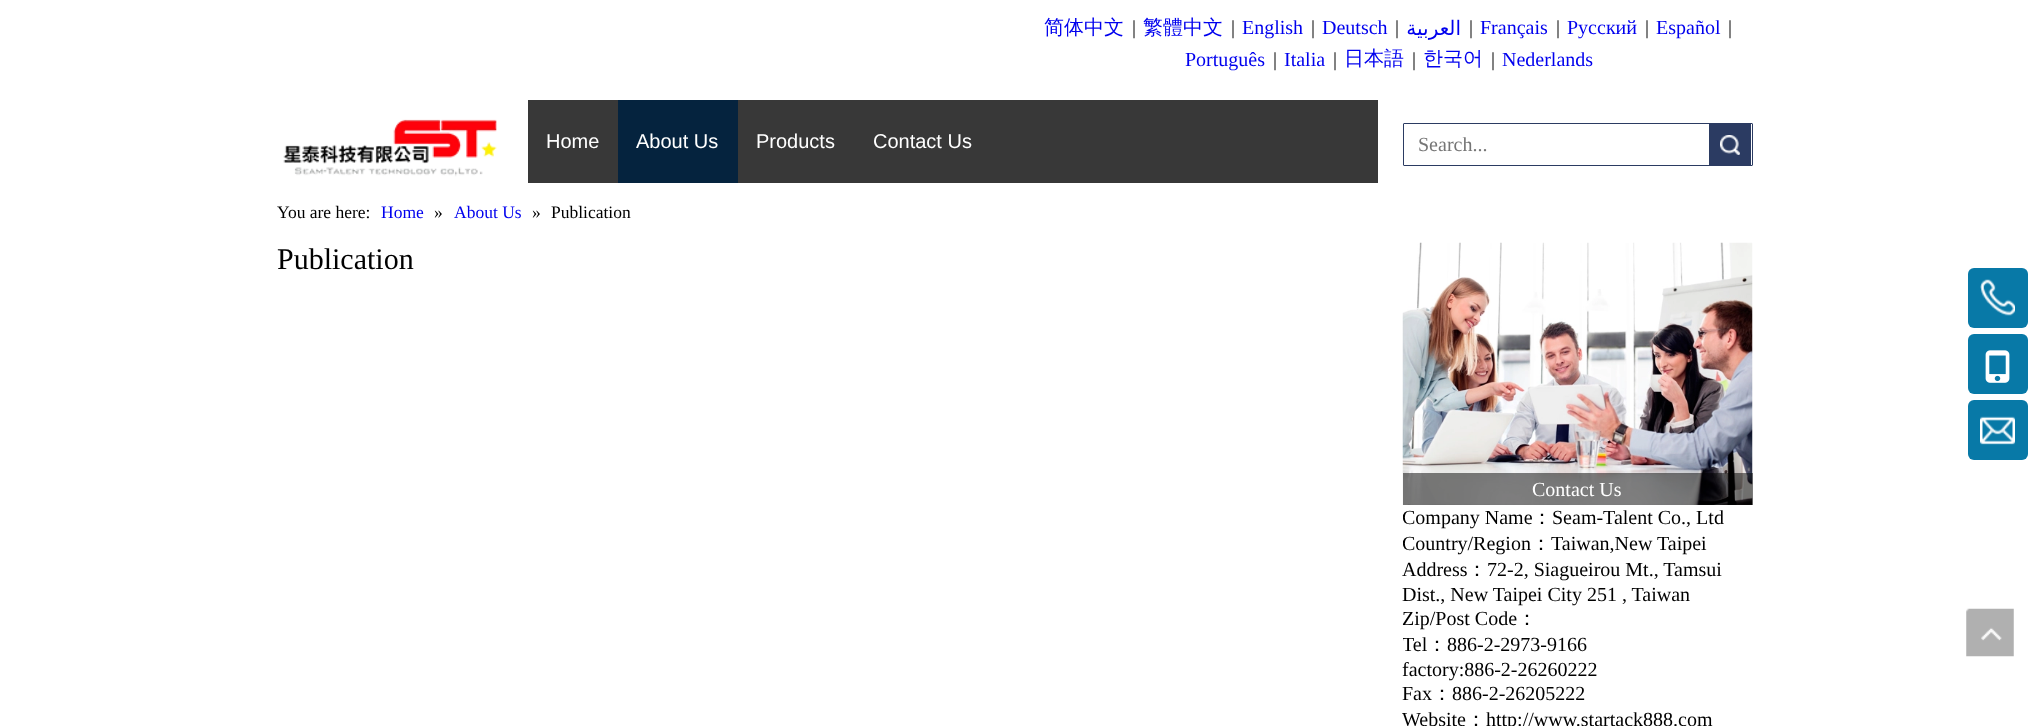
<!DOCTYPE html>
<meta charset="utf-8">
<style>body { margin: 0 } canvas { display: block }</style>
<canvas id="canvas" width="2028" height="726"></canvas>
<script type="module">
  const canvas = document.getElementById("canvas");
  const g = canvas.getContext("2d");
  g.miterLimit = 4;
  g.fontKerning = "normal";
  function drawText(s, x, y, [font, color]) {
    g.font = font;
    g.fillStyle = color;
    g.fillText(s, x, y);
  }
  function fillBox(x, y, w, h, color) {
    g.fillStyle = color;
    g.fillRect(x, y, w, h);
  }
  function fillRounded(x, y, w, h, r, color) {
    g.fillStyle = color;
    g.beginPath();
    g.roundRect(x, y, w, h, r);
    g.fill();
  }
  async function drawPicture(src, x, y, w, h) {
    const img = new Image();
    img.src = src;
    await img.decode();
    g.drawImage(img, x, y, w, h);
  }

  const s1 = ["500 20px WenQuanYi Zen Hei", "#0000EE"];
  const s2 = ["20px Liberation Serif", "#000000"];
  const s3 = ["20px Liberation Serif", "#0000EE"];
  const s4 = ["20px DejaVu Sans", "#0000EE"];
  const s5 = ["20px Liberation Sans", "#FFFFFF"];
  const s6 = ["20px Liberation Serif", "#757575"];
  const s7 = ["17.5px Liberation Serif", "#000000"];
  const s8 = ["17.5px Liberation Serif", "#0000EE"];
  const s9 = ["30px Liberation Serif", "#000000"];
  const s10 = ["20px Liberation Serif", "#FFFFFF"];
  const s11 = ["500 20px WenQuanYi Zen Hei", "#000000"];

  fillBox(0, 0, 2028, 726, "#FFFFFF");
  drawText("简体中文", 1044, 34, s1);
  drawText("|", 1132, 34, s2);
  drawText("繁體中文", 1143, 34, s1);
  drawText("|", 1231, 34, s2);
  drawText("English", 1242, 34, s3);
  drawText("|", 1311, 34, s2);
  drawText("Deutsch", 1322, 34, s3);
  drawText("|", 1395, 34, s2);
  g.direction = "rtl";
  drawText("العربية", 1461, 35, s4);
  g.direction = "ltr";
  drawText("|", 1469, 34, s2);
  drawText("Français", 1480, 34, s3);
  drawText("|", 1556, 34, s2);
  drawText("Pусский", 1567, 34, s3);
  drawText("|", 1645, 34, s2);
  drawText("Español", 1656, 34, s3);
  drawText("|", 1728, 34, s2);
  drawText("Português", 1185, 66, s3);
  drawText("|", 1273, 66, s2);
  drawText("Italia", 1284, 66, s3);
  drawText("|", 1333, 66, s2);
  drawText("日本語", 1344, 65, s1);
  drawText("|", 1412, 66, s2);
  drawText("한국어", 1423, 65, s1);
  drawText("|", 1491, 66, s2);
  drawText("Nederlands", 1502, 66, s3);
  await drawPicture("pic1.png", 283, 119, 214, 58);
  fillBox(528, 100, 850, 83, "#383838");
  drawText("Home", 546, 148, s5);
  fillBox(618, 100, 120, 83, "#05233E");
  drawText("About Us", 636, 148, s5);
  drawText("Products", 756, 148, s5);
  drawText("Contact Us", 873, 148, s5);
  g.beginPath();
  g.roundRect(1403.5, 123.5, 349, 42, 0.5);
  g.strokeStyle = "#2B3B62";
  g.stroke();
  drawText("Search...", 1418, 151, s6);
  fillBox(1709, 124, 42, 41, "#2B3B62");
  await drawPicture("pic2.png", 1720, 135, 20, 20);
  drawText("You are here:", 277, 218, s7);
  drawText("Home", 381, 218, s8);
  drawText("»", 434, 218, s7);
  drawText("About Us", 454, 218, s8);
  drawText("»", 532, 218, s7);
  drawText("Publication", 551, 218, s7);
  drawText("Publication", 277, 269, s9);
  await drawPicture("pic3.png", 1402, 242, 351, 263);
  fillBox(1403, 473, 350, 32, "rgba(0, 0, 0, 0.5)");
  drawText("Contact Us", 1532, 496, s10);
  g.save();
  g.beginPath();
  g.rect(1403, 505, 350, 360);
  g.clip();
  drawText("Company Name", 1402, 524, s2);
  g.restore();
  drawText("：", 1532, 524, s11);
  drawText("Seam-Talent Co., Ltd", 1552, 524, s2);
  g.save();
  g.beginPath();
  g.rect(1403, 505, 350, 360);
  g.clip();
  drawText("Country/Region", 1402, 550, s2);
  g.restore();
  drawText("：", 1531, 550, s11);
  drawText("Taiwan,New Taipei", 1551, 550, s2);
  drawText("Address", 1402, 576, s2);
  drawText("：", 1467, 576, s11);
  drawText("72-2, Siagueirou Mt., Tamsui", 1487, 576, s2);
  drawText("Dist., New Taipei City 251 , Taiwan", 1402, 601, s2);
  drawText("Zip/Post Code", 1402, 625, s2);
  drawText("：", 1517, 625, s11);
  g.save();
  g.beginPath();
  g.rect(1403, 505, 350, 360);
  g.clip();
  drawText("Tel", 1402, 651, s2);
  g.restore();
  drawText("：", 1427, 651, s11);
  drawText("886-2-2973-9166", 1447, 651, s2);
  drawText("factory:886-2-26260222", 1402, 676, s2);
  drawText("Fax", 1402, 700, s2);
  drawText("：", 1432, 700, s11);
  drawText("886-2-26205222", 1452, 700, s2);
  drawText("Website", 1402, 726, s2);
  drawText("：", 1466, 726, s11);
  drawText("http://www.startack888.com", 1486, 726, s2);
  fillRounded(1968, 268, 60, 60, 6, "#0879A7");
  await drawPicture("pic4.png", 1980, 279, 35, 37);
  fillRounded(1968, 334, 60, 60, 6, "#0879A7");
  await drawPicture("pic5.png", 1985, 350, 25, 33);
  fillRounded(1968, 400, 60, 60, 6, "#0879A7");
  await drawPicture("pic6.png", 1980, 416, 35, 29);
  await drawPicture("pic7.png", 1966, 608, 48, 49);
</script>
